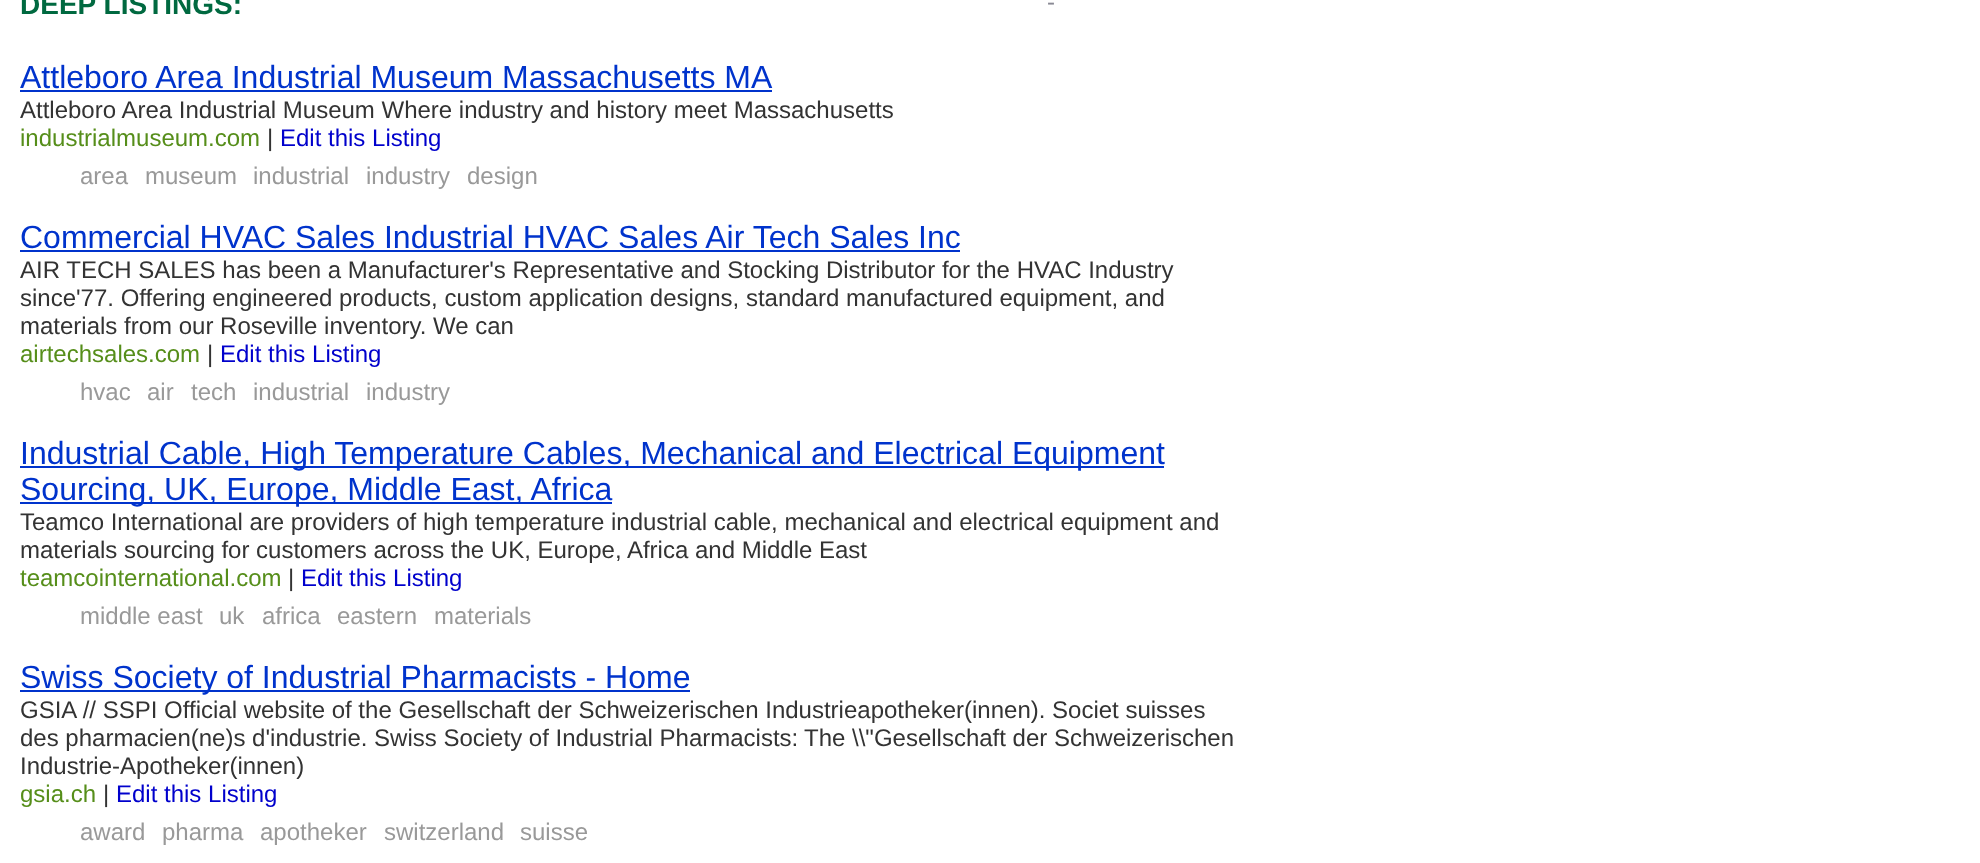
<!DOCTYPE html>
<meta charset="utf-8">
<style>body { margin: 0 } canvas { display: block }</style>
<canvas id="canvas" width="1980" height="863"></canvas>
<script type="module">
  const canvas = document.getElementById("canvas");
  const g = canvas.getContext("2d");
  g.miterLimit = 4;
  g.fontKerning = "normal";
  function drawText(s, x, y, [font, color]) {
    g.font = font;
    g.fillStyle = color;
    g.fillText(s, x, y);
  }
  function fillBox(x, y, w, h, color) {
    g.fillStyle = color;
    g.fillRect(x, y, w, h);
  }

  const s1 = ["bold 28px Liberation Sans", "#006940"];
  const s2 = ["24px Liberation Sans", "#898994"];
  const s3 = ["32px Liberation Sans", "#0033CC"];
  const s4 = ["24px Liberation Sans", "#333333"];
  const s5 = ["24px Liberation Sans", "#568E1A"];
  const s6 = ["24px Liberation Sans", "#0000CC"];
  const s7 = ["24px Liberation Sans", "#999999"];

  fillBox(0, 0, 1980, 863, "#FFFFFF");
  drawText("DEEP LISTINGS:", 20, 14, s1);
  drawText("-", 1047, 10, s2);
  drawText("Attleboro Area Industrial Museum Massachusetts MA", 20, 88, s3);
  fillBox(20, 90, 752, 2, "#0033CC");
  drawText("Attleboro Area Industrial Museum Where industry and history meet Massachusetts", 20, 118, s4);
  drawText("industrialmuseum.com", 20, 146, s5);
  drawText("|", 267, 146, s4);
  drawText("Edit this Listing", 280, 146, s6);
  drawText("area", 80, 184, s7);
  drawText("museum", 145, 184, s7);
  drawText("industrial", 253, 184, s7);
  drawText("industry", 366, 184, s7);
  drawText("design", 467, 184, s7);
  drawText("Commercial HVAC Sales Industrial HVAC Sales Air Tech Sales Inc", 20, 248, s3);
  fillBox(20, 250, 940, 2, "#0033CC");
  drawText("AIR TECH SALES has been a Manufacturer's Representative and Stocking Distributor for the HVAC Industry", 20, 278, s4);
  drawText("since'77. Offering engineered products, custom application designs, standard manufactured equipment, and", 20, 306, s4);
  drawText("materials from our Roseville inventory. We can", 20, 334, s4);
  drawText("airtechsales.com", 20, 362, s5);
  drawText("|", 207, 362, s4);
  drawText("Edit this Listing", 220, 362, s6);
  drawText("hvac", 80, 400, s7);
  drawText("air", 147, 400, s7);
  drawText("tech", 191, 400, s7);
  drawText("industrial", 253, 400, s7);
  drawText("industry", 366, 400, s7);
  fillBox(20, 466, 1144, 2, "#0033CC");
  drawText("Industrial Cable, High Temperature Cables, Mechanical and Electrical Equipment", 20, 464, s3);
  fillBox(20, 502, 592, 2, "#0033CC");
  drawText("Sourcing, UK, Europe, Middle East, Africa", 20, 500, s3);
  drawText("Teamco International are providers of high temperature industrial cable, mechanical and electrical equipment and", 20, 530, s4);
  drawText("materials sourcing for customers across the UK, Europe, Africa and Middle East", 20, 558, s4);
  drawText("teamcointernational.com", 20, 586, s5);
  drawText("|", 288, 586, s4);
  drawText("Edit this Listing", 301, 586, s6);
  drawText("middle east", 80, 624, s7);
  drawText("uk", 219, 624, s7);
  drawText("africa", 262, 624, s7);
  drawText("eastern", 337, 624, s7);
  drawText("materials", 434, 624, s7);
  fillBox(20, 690, 670, 2, "#0033CC");
  drawText("Swiss Society of Industrial Pharmacists - Home", 20, 688, s3);
  drawText("GSIA // SSPI Official website of the Gesellschaft der Schweizerischen Industrieapotheker(innen). Societ suisses", 20, 718, s4);
  drawText("des pharmacien(ne)s d'industrie. Swiss Society of Industrial Pharmacists:", 20, 746, s4);
  drawText("The \\\\\"Gesellschaft der Schweizerischen", 804, 746, s4);
  drawText("Industrie-Apotheker(innen)", 20, 774, s4);
  drawText("gsia.ch", 20, 802, s5);
  drawText("|", 103, 802, s4);
  drawText("Edit this Listing", 116, 802, s6);
  drawText("award", 80, 840, s7);
  drawText("pharma", 162, 840, s7);
  drawText("apotheker", 260, 840, s7);
  drawText("switzerland", 384, 840, s7);
  drawText("suisse", 520, 840, s7);
</script>
